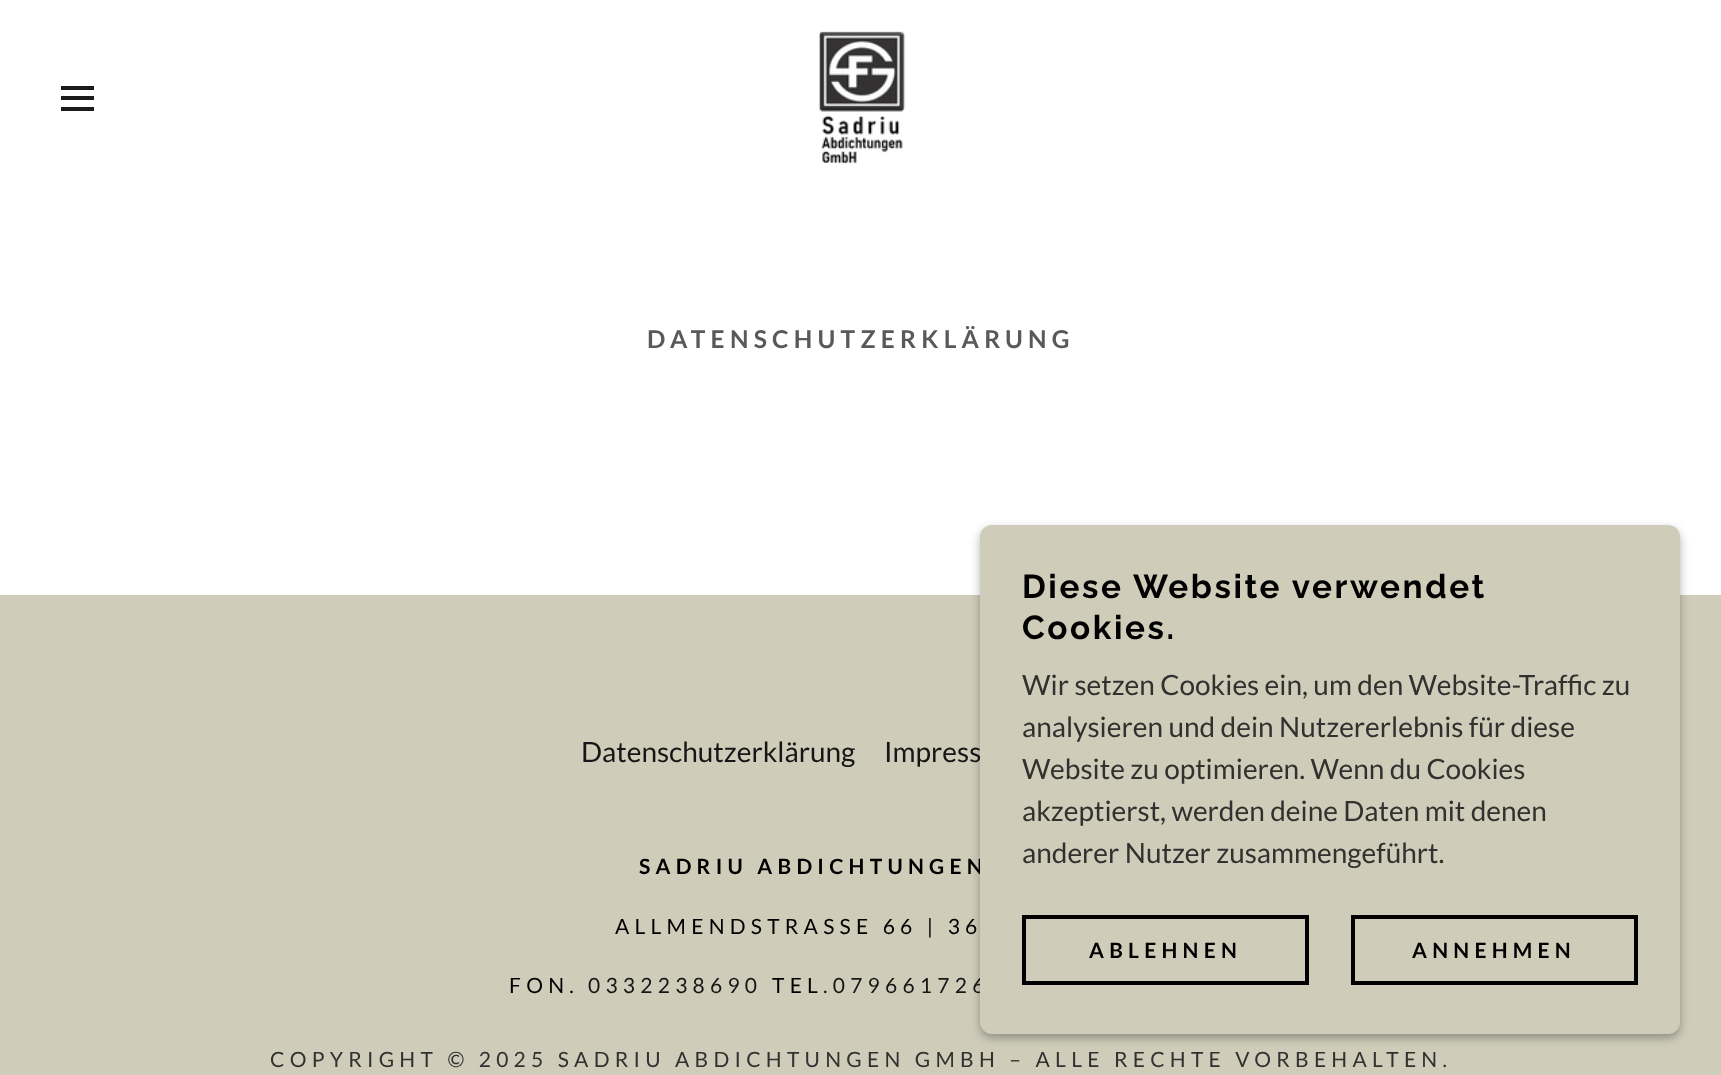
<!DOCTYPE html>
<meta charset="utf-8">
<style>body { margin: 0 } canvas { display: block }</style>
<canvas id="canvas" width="1721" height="1075"></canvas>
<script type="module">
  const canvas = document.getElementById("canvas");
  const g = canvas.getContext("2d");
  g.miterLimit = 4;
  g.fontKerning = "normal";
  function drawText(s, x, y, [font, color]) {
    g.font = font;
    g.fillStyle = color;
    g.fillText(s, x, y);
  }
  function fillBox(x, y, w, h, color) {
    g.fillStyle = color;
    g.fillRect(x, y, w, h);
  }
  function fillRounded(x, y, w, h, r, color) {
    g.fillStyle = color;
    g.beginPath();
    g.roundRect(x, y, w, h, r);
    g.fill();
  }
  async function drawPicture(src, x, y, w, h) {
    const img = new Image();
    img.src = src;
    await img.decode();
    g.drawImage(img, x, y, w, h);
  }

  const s1 = ["bold 24.5px Lato", "#595959"];
  const s2 = ["28px Lato", "#161616"];
  const s3 = ["bold 21px Lato", "#000000"];
  const s4 = ["21px Lato", "#161616"];
  const s5 = ["bold 33.25px Raleway", "#000000"];
  const s6 = ["28px Lato", "#31312F"];
  const s7 = ["21px Lato", "#000000"];
  const s8 = ["21px Lato", "#31312F"];

  fillBox(0, 0, 1721, 1075, "#CFCDBA");
  fillBox(0, 0, 1721, 595, "#FFFFFF");
  fillBox(61, 86, 33, 4, "#1B1B1B");
  fillBox(61, 96, 33, 4, "#1B1B1B");
  fillBox(61, 107, 33, 4, "#1B1B1B");
  await drawPicture("pic1.png", 819, 31, 87, 133);
  g.letterSpacing = "5.25px";
  drawText("DATENSCHUTZERKLÄRUNG", 647, 348, s1);
  g.fillStyle = "rgba(0, 0, 0, 0.3)";
  g.filter = "blur(5px)";
  g.beginPath();
  g.roundRect(980, 529, 700, 509, 12);
  g.fill();
  g.filter = "none";
  g.letterSpacing = "0px";
  drawText("Impress", 884, 762, s2);
  g.letterSpacing = "5.25px";
  drawText("SADRIU ABDICHTUNGEN", 639, 874, s3);
  drawText(".079661726", 823, 993, s4);
  fillRounded(980, 525, 700, 509, 12, "#CFCDBA");
  g.letterSpacing = "2.6px";
  drawText("Diese Website verwendet", 1022, 598, s5);
  drawText("Cookies.", 1022, 639, s5);
  g.letterSpacing = "0px";
  drawText("Wir setzen Cookies ein, um den Website-Traffic zu", 1022, 695, s6);
  drawText("analysieren und dein Nutzererlebnis für diese", 1022, 737, s6);
  drawText("Website zu optimieren. Wenn du Cookies", 1022, 779, s6);
  drawText("akzeptierst, werden deine Daten mit denen", 1022, 821, s6);
  drawText("anderer Nutzer zusammengeführt.", 1022, 863, s6);
  g.strokeStyle = "#000000";
  g.lineWidth = 4;
  g.strokeRect(1024, 917, 283, 66);
  g.letterSpacing = "5.25px";
  drawText("ABLEHNEN", 1089, 958, s3);
  g.strokeRect(1353, 917, 283, 66);
  drawText("ANNEHMEN", 1412, 958, s3);
  g.letterSpacing = "0px";
  drawText("Datenschutzerklärung", 581, 762, s2);
  g.letterSpacing = "5.25px";
  drawText("ALLMENDSTRASSE 66 | 36", 615, 934, s7);
  drawText("FON.", 509, 993, s7);
  drawText("0332238690", 588, 993, s4);
  drawText("TEL", 772, 993, s7);
  drawText("COPYRIGHT © 2025 SADRIU ABDICHTUNGEN GMBH – ALLE RECHTE VORBEHALTEN.", 270, 1067, s8);
</script>
